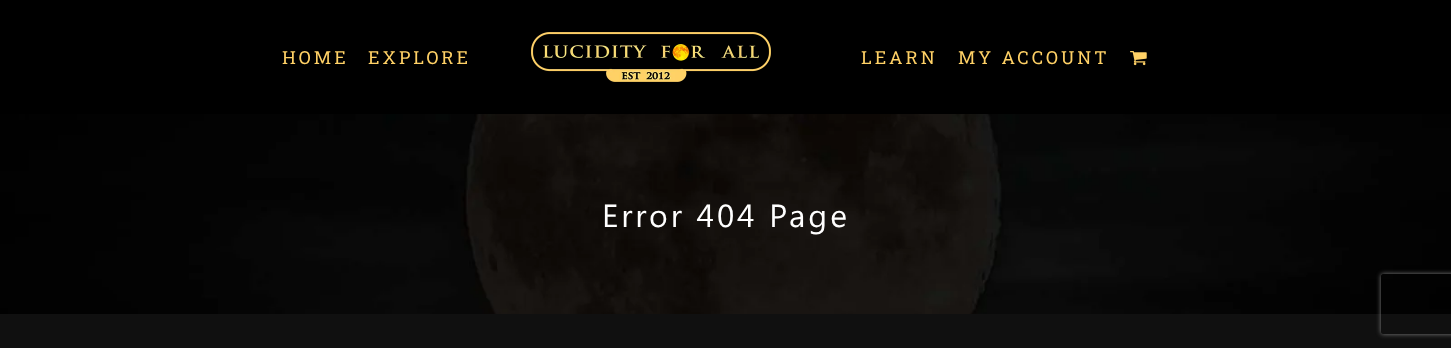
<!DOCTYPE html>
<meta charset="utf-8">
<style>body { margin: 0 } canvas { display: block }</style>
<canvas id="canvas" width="1451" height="348"></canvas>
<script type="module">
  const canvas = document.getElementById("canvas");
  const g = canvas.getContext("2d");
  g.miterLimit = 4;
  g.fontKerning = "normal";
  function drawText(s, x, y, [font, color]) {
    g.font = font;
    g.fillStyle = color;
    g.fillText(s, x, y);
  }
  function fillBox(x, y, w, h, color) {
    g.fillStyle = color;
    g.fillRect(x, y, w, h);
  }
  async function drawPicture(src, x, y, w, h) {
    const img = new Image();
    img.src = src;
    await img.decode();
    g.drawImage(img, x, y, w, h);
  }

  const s1 = ["18px Roboto Slab", "#FFD166"];
  const s2 = ["32px Segoe UI", "#FFFFFF"];

  fillBox(0, 0, 1451, 348, "#101010");
  fillBox(0, 0, 1451, 114, "#000000");
  g.letterSpacing = "3px";
  drawText("HOME", 282, 64, s1);
  drawText("EXPLORE", 368, 64, s1);
  await drawPicture("pic1.png", 531, 32, 240, 50);
  drawText("LEARN", 861, 64, s1);
  drawText("MY ACCOUNT", 958, 64, s1);
  await drawPicture("pic2.png", 1130, 51, 17, 15);
  await drawPicture("pic3.png", 0, 114, 1451, 200);
  drawText("Error 404 Page", 602, 227, s2);
  g.save();
  g.beginPath();
  g.moveTo(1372, 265);
  g.lineTo(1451, 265);
  g.lineTo(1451, 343);
  g.lineTo(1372, 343);
  g.closePath();
  g.moveTo(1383, 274);
  g.lineTo(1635, 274);
  g.bezierCurveTo(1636, 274, 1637, 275, 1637, 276);
  g.lineTo(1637, 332);
  g.bezierCurveTo(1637, 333, 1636, 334, 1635, 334);
  g.lineTo(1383, 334);
  g.bezierCurveTo(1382, 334, 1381, 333, 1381, 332);
  g.lineTo(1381, 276);
  g.bezierCurveTo(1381, 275, 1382, 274, 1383, 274);
  g.closePath();
  g.clip("evenodd");
  g.fillStyle = "#808080";
  g.filter = "blur(2.5px)";
  g.beginPath();
  g.roundRect(1381, 274, 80, 60, 2);
  g.fill();
  g.filter = "none";
  g.restore();
</script>
